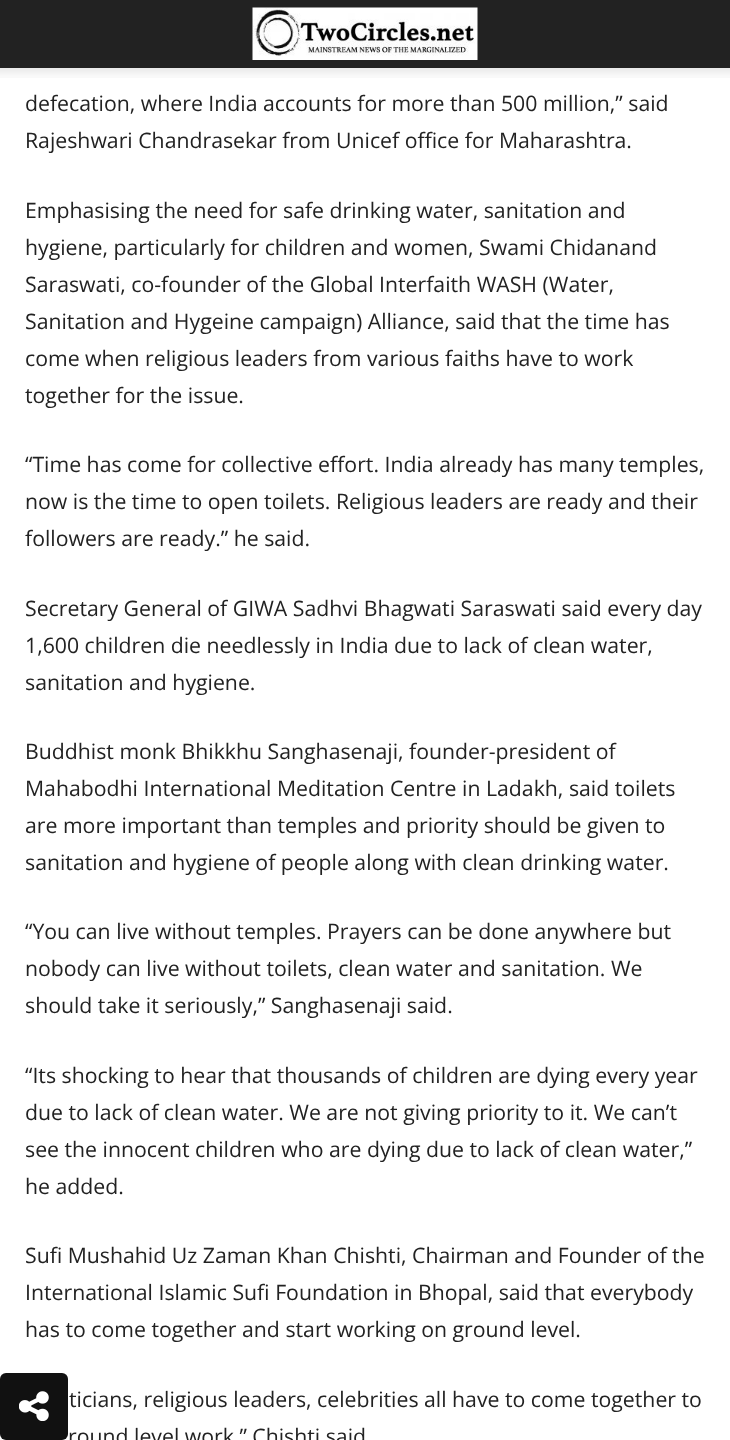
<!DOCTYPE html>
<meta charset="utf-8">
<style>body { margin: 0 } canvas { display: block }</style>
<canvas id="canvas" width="730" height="1440"></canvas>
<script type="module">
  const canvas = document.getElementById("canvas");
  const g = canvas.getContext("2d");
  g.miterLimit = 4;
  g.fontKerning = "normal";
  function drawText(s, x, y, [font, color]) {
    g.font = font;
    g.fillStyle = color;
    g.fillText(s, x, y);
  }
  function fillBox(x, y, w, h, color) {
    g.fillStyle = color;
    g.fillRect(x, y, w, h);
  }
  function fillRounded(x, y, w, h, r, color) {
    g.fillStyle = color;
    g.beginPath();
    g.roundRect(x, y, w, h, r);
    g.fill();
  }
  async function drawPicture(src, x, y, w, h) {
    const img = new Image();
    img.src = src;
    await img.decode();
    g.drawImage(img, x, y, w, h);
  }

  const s1 = ["21.25px Open Sans", "#222222"];

  fillBox(0, 0, 730, 1440, "#FFFFFF");
  fillBox(0, 0, 730, 68, "#222222");
  await drawPicture("pic1.png", 252, 7, 226, 53);
  await drawPicture("pic2.png", 0, 68, 730, 10);
  drawText("defecation, where India accounts for more than 500 million,” said", 25, 111, s1);
  drawText("Rajeshwari Chandrasekar from Unicef office for Maharashtra.", 25, 148, s1);
  drawText("Emphasising the need for safe drinking water, sanitation and", 25, 218, s1);
  drawText("hygiene, particularly for children and women, Swami Chidanand", 25, 255, s1);
  drawText("Saraswati, co-founder of the Global Interfaith WASH (Water,", 25, 292, s1);
  drawText("Sanitation and Hygeine campaign) Alliance, said that the time has", 25, 329, s1);
  drawText("come when religious leaders from various faiths have to work", 25, 366, s1);
  drawText("together for the issue.", 25, 403, s1);
  drawText("“Time has come for collective effort. India already has many temples,", 25, 472, s1);
  drawText("now is the time to open toilets. Religious leaders are ready and their", 25, 509, s1);
  drawText("followers are ready.” he said.", 25, 546, s1);
  drawText("Secretary General of GIWA Sadhvi Bhagwati Saraswati said every day", 25, 616, s1);
  drawText("1,600 children die needlessly in India due to lack of clean water,", 25, 653, s1);
  drawText("sanitation and hygiene.", 25, 690, s1);
  drawText("Buddhist monk Bhikkhu Sanghasenaji, founder-president of", 25, 759, s1);
  drawText("Mahabodhi International Meditation Centre in Ladakh, said toilets", 25, 796, s1);
  drawText("are more important than temples and priority should be given to", 25, 833, s1);
  drawText("sanitation and hygiene of people along with clean drinking water.", 25, 870, s1);
  drawText("“You can live without temples. Prayers can be done anywhere but", 25, 939, s1);
  drawText("nobody can live without toilets, clean water and sanitation. We", 25, 976, s1);
  drawText("should take it seriously,” Sanghasenaji said.", 25, 1013, s1);
  drawText("“Its shocking to hear that thousands of children are dying every year", 25, 1083, s1);
  drawText("due to lack of clean water. We are not giving priority to it. We can’t", 25, 1120, s1);
  drawText("see the innocent children who are dying due to lack of clean water,”", 25, 1157, s1);
  drawText("he added.", 25, 1194, s1);
  drawText("Sufi Mushahid Uz Zaman Khan Chishti, Chairman and Founder of the", 25, 1263, s1);
  drawText("International Islamic Sufi Foundation in Bhopal, said that everybody", 25, 1300, s1);
  drawText("has to come together and start working on ground level.", 25, 1337, s1);
  drawText("ticians, religious leaders, celebrities all have to come together to", 69, 1407, s1);
  drawText("round level work,” Chishti said", 68, 1444, s1);
  fillRounded(0, 1373, 68, 67, 6, "#111111");
  await drawPicture("pic3.png", 19, 1391, 30, 30);
</script>
